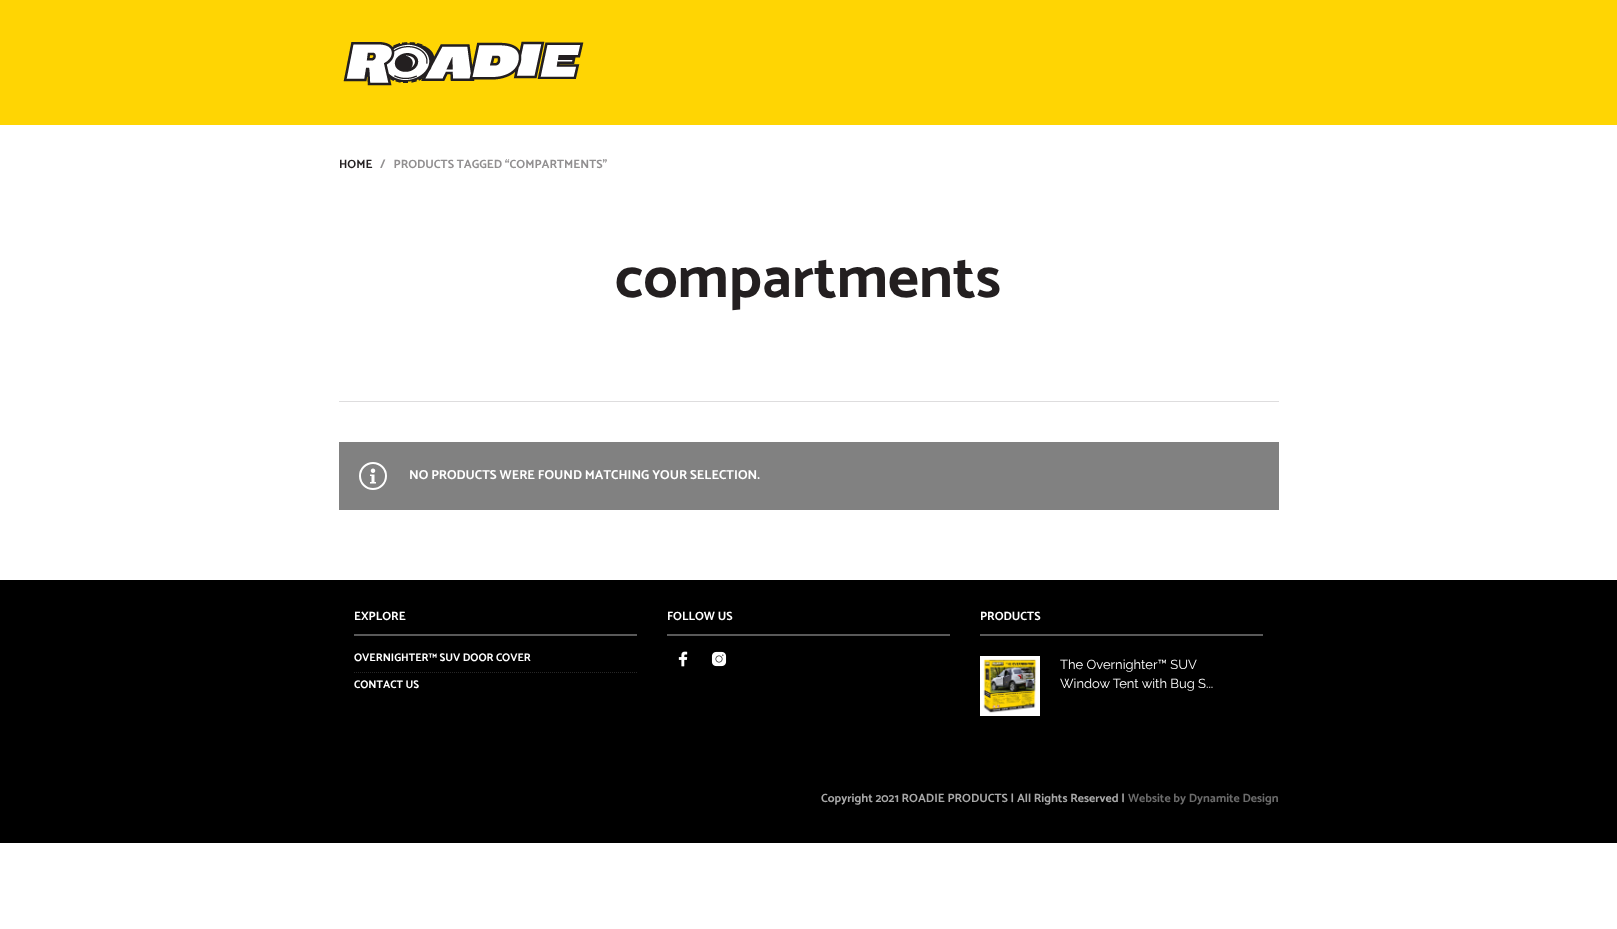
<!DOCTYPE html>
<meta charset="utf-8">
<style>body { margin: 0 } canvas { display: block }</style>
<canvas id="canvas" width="1617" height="929"></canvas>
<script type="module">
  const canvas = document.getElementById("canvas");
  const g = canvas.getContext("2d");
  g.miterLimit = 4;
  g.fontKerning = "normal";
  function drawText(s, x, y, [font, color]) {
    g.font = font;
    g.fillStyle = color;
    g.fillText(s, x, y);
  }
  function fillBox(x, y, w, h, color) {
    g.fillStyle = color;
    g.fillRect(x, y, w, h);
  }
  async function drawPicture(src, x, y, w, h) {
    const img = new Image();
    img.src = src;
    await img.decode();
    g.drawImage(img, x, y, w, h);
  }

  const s1 = ["bold 12px Catamaran", "#231F20"];
  const s2 = ["bold 12px Catamaran", "#918F90"];
  const s3 = ["bold 60px Catamaran", "#231F20"];
  const s4 = ["bold 13px Catamaran", "#FFFFFF"];
  const s5 = ["bold 12px Catamaran", "#FFFFFF"];
  const s6 = ["bold 11px Catamaran", "#FFFFFF"];
  const s7 = ["13px Raleway", "#FFFFFF"];
  const s8 = ["bold 12px Catamaran", "#A8A8A8"];
  const s9 = ["bold 12px Catamaran", "#6B6B6B"];

  fillBox(0, 0, 1617, 929, "#FFFFFF");
  fillBox(0, 0, 1617, 125, "#FFD503");
  await drawPicture("pic1.png", 343, 41, 241, 45);
  drawText("HOME", 339, 168, s1);
  drawText("/   PRODUCTS TAGGED “COMPARTMENTS”", 380, 168, s2);
  drawText("compartments", 615, 297, s3);
  fillBox(339, 401, 940, 1, "#DEDDDE");
  fillBox(339, 442, 940, 68, "#818181");
  await drawPicture("pic2.png", 370, 468, 6, 16);
  g.beginPath();
  g.arc(373, 476, 13, 0, Math.PI * 2);
  g.strokeStyle = "#FFFFFF";
  g.lineWidth = 2;
  g.stroke();
  drawText("NO PRODUCTS WERE FOUND MATCHING YOUR SELECTION.", 409, 479, s4);
  fillBox(0, 580, 1617, 263, "#000000");
  fillBox(354, 634, 283, 2, "#595959");
  drawText("EXPLORE", 354, 620, s5);
  g.beginPath();
  g.moveTo(354, 672.5);
  g.lineTo(637, 672.5);
  g.strokeStyle = "#262626";
  g.lineWidth = 1;
  g.setLineDash([1, 1]);
  g.stroke();
  drawText("OVERNIGHTER™ SUV DOOR COVER", 354, 661, s6);
  drawText("CONTACT US", 354, 688, s6);
  fillBox(667, 634, 283, 2, "#595959");
  drawText("FOLLOW US", 667, 620, s5);
  await drawPicture("pic3.png", 678, 651, 10, 16);
  await drawPicture("pic4.png", 711, 651, 16, 16);
  fillBox(980, 634, 283, 2, "#595959");
  drawText("PRODUCTS", 980, 620, s5);
  await drawPicture("pic5.png", 980, 656, 60, 60);
  drawText("The Overnighter™ SUV", 1060, 669, s7);
  drawText("Window Tent with Bug S...", 1060, 688, s7);
  drawText("Copyright 2021 ROADIE PRODUCTS | All Rights Reserved |", 821, 802, s8);
  drawText("Website by Dynamite Design", 1128, 802, s9);
</script>
